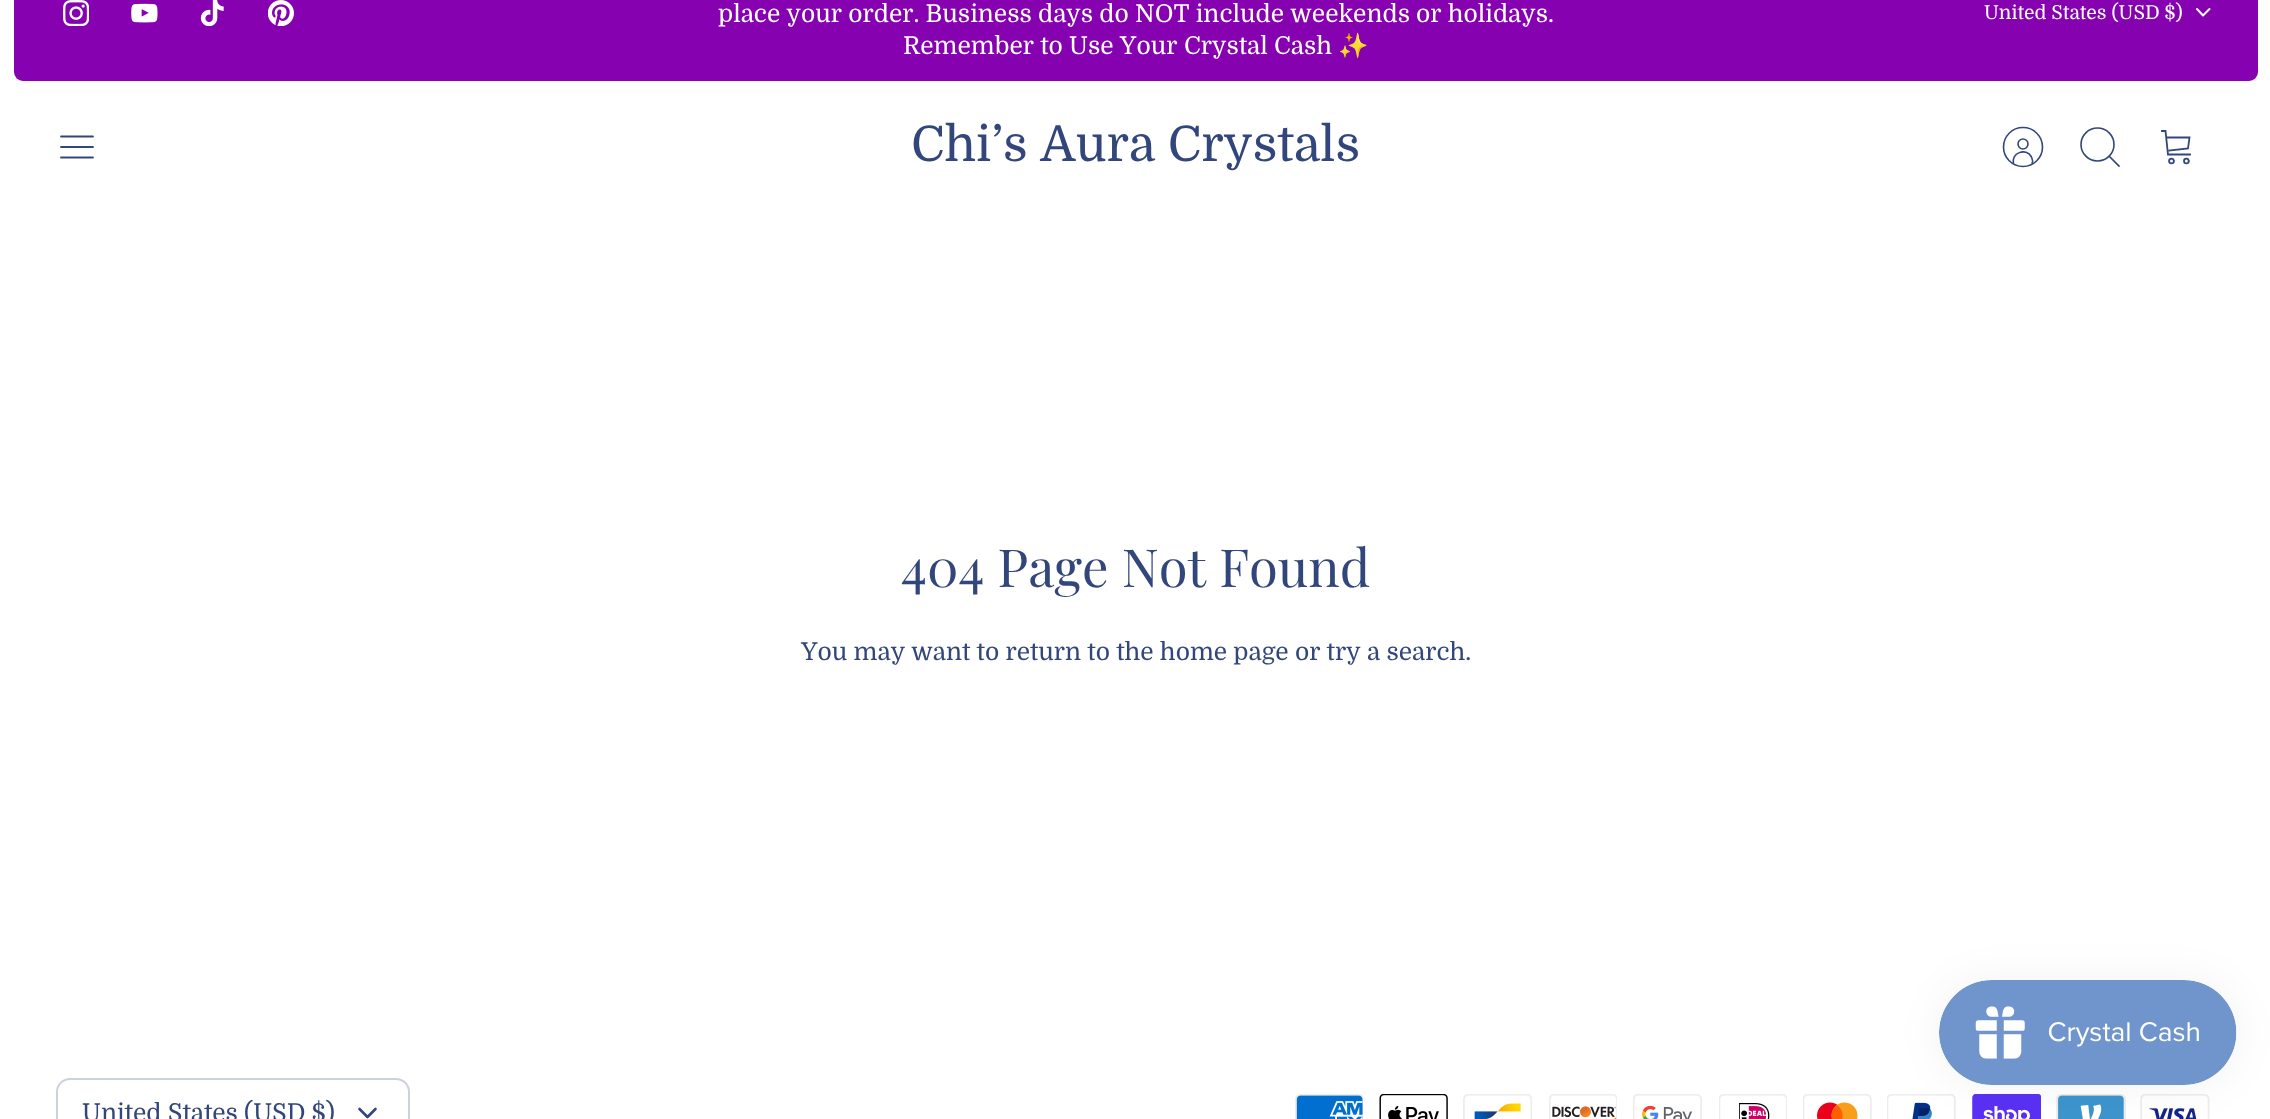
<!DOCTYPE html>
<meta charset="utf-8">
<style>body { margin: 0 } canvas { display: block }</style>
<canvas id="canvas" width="2270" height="1119"></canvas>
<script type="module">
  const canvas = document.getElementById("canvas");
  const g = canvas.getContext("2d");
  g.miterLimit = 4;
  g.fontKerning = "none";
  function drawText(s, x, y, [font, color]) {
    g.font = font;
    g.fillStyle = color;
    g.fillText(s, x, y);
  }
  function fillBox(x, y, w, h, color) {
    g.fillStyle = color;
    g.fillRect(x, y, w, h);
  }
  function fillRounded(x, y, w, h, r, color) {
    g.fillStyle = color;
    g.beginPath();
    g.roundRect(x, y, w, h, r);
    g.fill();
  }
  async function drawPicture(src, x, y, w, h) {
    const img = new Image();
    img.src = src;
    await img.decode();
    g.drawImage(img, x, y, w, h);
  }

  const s1 = ["24.5px Domine", "#FFFFFF"];
  const s2 = ["24.5px Noto Color Emoji", "#FFFFFF"];
  const s3 = ["19.25px Domine", "#FFFFFF"];
  const s4 = ["49px Domine", "#32467C"];
  const s5 = ["52.5px Playfair Display", "#32467C"];
  const s6 = ["24.5px Domine", "#32467C"];

  fillBox(0, 0, 2270, 1119, "#FFFFFF");
  fillRounded(14, -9, 2244, 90, 9, "#8601AF");
  await drawPicture("pic1.png", 63, 0, 26, 26);
  await drawPicture("pic2.png", 131, 3, 27, 20);
  await drawPicture("pic3.png", 200, 0, 24, 26);
  await drawPicture("pic4.png", 268, 0, 26, 26);
  drawText("place your order. Business days do NOT include weekends", 718, 22, s1);
  drawText("or holidays.", 1416, 22, s1);
  drawText("Remember to Use Your", 903, 54, s1);
  drawText("Crystal Cash", 1184, 54, s1);
  drawText("✨", 1338, 54, s2);
  drawText("United States (USD $)", 1984, 19, s3);
  g.beginPath();
  g.moveTo(2197, 9);
  g.lineTo(2203, 15.5);
  g.lineTo(2209.5, 9);
  g.strokeStyle = "#FFFFFF";
  g.lineWidth = 2;
  g.lineCap = "round";
  g.lineJoin = "round";
  g.stroke();
  g.beginPath();
  g.moveTo(61, 147);
  g.lineTo(93, 147);
  g.moveTo(61, 136.5);
  g.lineTo(93, 136.5);
  g.moveTo(61, 157.5);
  g.lineTo(93, 157.5);
  g.strokeStyle = "#32467C";
  g.lineWidth = 1.8;
  g.stroke();
  drawText("Chi’s Aura Crystals", 911, 161, s4);
  g.beginPath();
  g.moveTo(2032, 164);
  g.bezierCurveTo(2033, 161.5, 2032.5, 159, 2031.5, 157);
  g.bezierCurveTo(2026, 147, 2010.5, 153, 2013.5, 164);
  g.lineWidth = 1.6;
  g.lineCap = "butt";
  g.lineJoin = "miter";
  g.stroke();
  g.beginPath();
  g.arc(2023, 144, 5, 0, Math.PI * 2);
  g.stroke();
  g.beginPath();
  g.arc(2023, 147, 19.5, 0, Math.PI * 2);
  g.stroke();
  g.beginPath();
  g.arc(2097.5, 144.5, 16.5, 0, Math.PI * 2);
  g.stroke();
  g.beginPath();
  g.moveTo(2109.5, 156.5);
  g.lineTo(2119, 166);
  g.lineCap = "square";
  g.stroke();
  g.beginPath();
  g.moveTo(2162, 131);
  g.lineTo(2165.5, 131);
  g.lineTo(2168, 154.5);
  g.lineTo(2190, 154.5);
  g.moveTo(2167, 137.5);
  g.lineTo(2189.5, 137.5);
  g.lineTo(2188, 148.5);
  g.lineTo(2169.5, 150.5);
  g.lineWidth = 1.8;
  g.stroke();
  g.beginPath();
  g.arc(2171.5, 161, 2.4, 0, Math.PI * 2);
  g.stroke();
  g.beginPath();
  g.arc(2186.4, 161, 2.4, 0, Math.PI * 2);
  g.stroke();
  drawText("404 Page Not Found", 901, 587, s5);
  drawText("You may want to return to the home page or try", 801, 660, s6);
  drawText("a search.", 1367, 660, s6);
  g.beginPath();
  g.roundRect(57, 1079, 352, 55, 13);
  g.strokeStyle = "#CCD1DE";
  g.lineWidth = 2;
  g.stroke();
  drawText("United States (USD $)", 82, 1121, s6);
  g.beginPath();
  g.moveTo(359.5, 1109);
  g.lineTo(367.5, 1117);
  g.lineTo(375.5, 1109);
  g.strokeStyle = "#32467C";
  g.lineWidth = 2.6;
  g.lineCap = "round";
  g.lineJoin = "round";
  g.stroke();
  await drawPicture("pic5.png", 1295, 1094, 68, 25);
  await drawPicture("pic6.png", 1379, 1094, 69, 25);
  await drawPicture("pic7.png", 1463, 1094, 69, 25);
  await drawPicture("pic8.png", 1549, 1094, 68, 25);
  await drawPicture("pic9.png", 1633, 1094, 69, 25);
  await drawPicture("pic10.png", 1719, 1094, 68, 25);
  await drawPicture("pic11.png", 1803, 1094, 69, 25);
  await drawPicture("pic12.png", 1887, 1094, 69, 25);
  await drawPicture("pic13.png", 1972, 1094, 69, 25);
  await drawPicture("pic14.png", 2056, 1094, 70, 25);
  await drawPicture("pic15.png", 2140, 1094, 70, 25);
  g.fillStyle = "rgba(0, 0, 0, 0.05)";
  g.filter = "blur(22px)";
  g.beginPath();
  g.roundRect(1939, 980, 298, 105, 52.5);
  g.fill();
  g.filter = "none";
  await drawPicture("pic16.png", 1939, 980, 298, 105);
</script>
